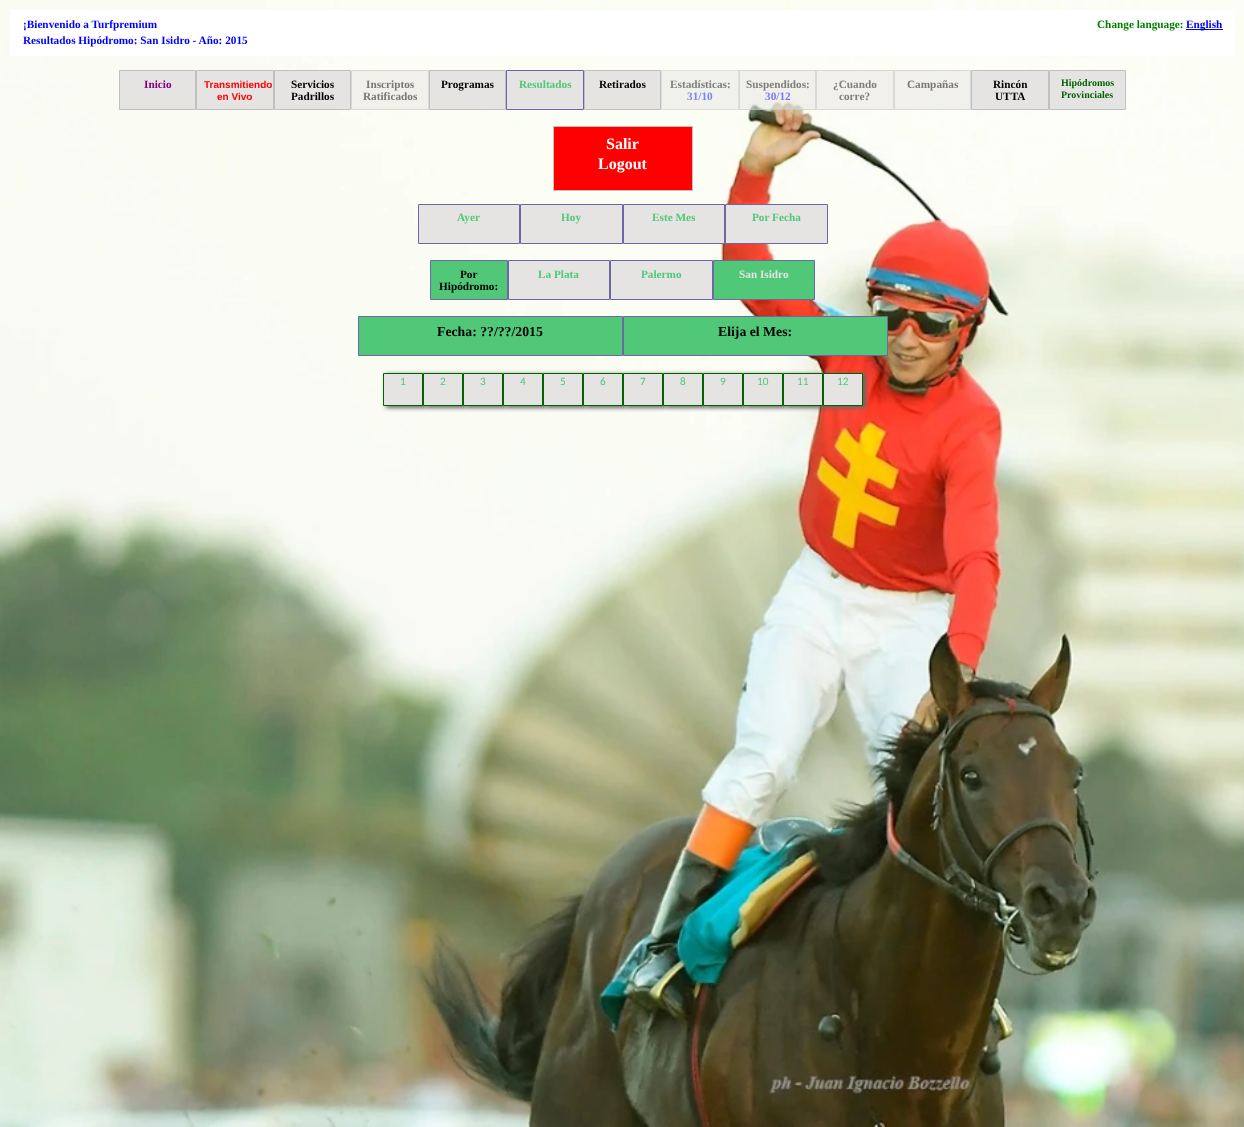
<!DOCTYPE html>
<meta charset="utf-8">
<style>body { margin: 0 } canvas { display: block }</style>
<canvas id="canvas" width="1244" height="1127"></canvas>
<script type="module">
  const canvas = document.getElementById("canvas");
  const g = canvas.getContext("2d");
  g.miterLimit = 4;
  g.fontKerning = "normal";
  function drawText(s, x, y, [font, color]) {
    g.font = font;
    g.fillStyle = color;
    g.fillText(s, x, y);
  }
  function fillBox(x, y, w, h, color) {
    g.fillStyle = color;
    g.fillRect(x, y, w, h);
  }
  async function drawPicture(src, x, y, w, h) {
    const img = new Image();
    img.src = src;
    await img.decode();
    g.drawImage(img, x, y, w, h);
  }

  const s1 = ["bold 11.25px Liberation Serif", "#0000FF"];
  const s2 = ["bold 11.25px Liberation Serif", "#008000"];
  const s3 = ["bold 11.25px Liberation Serif", "#0000EE"];
  const s4 = ["bold 11.25px Liberation Serif", "#800080"];
  const s5 = ["bold 10px Liberation Sans", "#FF0000"];
  const s6 = ["bold 11.25px Liberation Serif", "#000000"];
  const s7 = ["bold 11.25px Liberation Serif", "#787876"];
  const s8 = ["bold 11.25px Liberation Serif", "#50C878"];
  const s9 = ["bold 11.25px Liberation Serif", "#7E7F7A"];
  const s10 = ["bold 11.25px Liberation Serif", "#7E7FFA"];
  const s11 = ["bold 11.25px Liberation Serif", "#7878F5"];
  const s12 = ["bold 10px Liberation Serif", "#006400"];
  const s13 = ["bold 16px Liberation Serif", "#FFFFFF"];
  const s14 = ["bold 11.25px Liberation Serif", "#E5E4E2"];
  const s15 = ["bold 13.75px Liberation Serif", "#000000"];
  const s16 = ["11.25px Carlito", "#50C878"];

  fillBox(0, 0, 1244, 1127, "#FFFFFF");
  await drawPicture("pic1.png", 0, 0, 1244, 1127);
  fillBox(10, 10, 1225, 46, "#FFFFFF");
  drawText("¡Bienvenido a Turfpremium", 23, 28, s1);
  drawText("Change language:", 1097, 28, s2);
  fillBox(1186, 29, 37, 1, "#0000EE");
  drawText("English", 1186, 28, s3);
  drawText("Resultados Hipódromo: San Isidro - Año: 2015", 23, 44, s1);
  g.fillStyle = "#E5E4E2";
  g.beginPath();
  g.rect(119.5, 70.5, 76, 39);
  g.fill();
  g.strokeStyle = "#C0C0C0";
  g.stroke();
  drawText("Inicio", 144, 88, s4);
  g.fillStyle = "#E5E4E2";
  g.beginPath();
  g.rect(196.5, 70.5, 77, 39);
  g.fill();
  g.stroke();
  drawText("Transmitiendo", 204, 88, s5);
  drawText("en Vivo", 217, 100, s5);
  g.fillStyle = "#E5E4E2";
  g.beginPath();
  g.rect(274.5, 70.5, 76, 39);
  g.fill();
  g.stroke();
  drawText("Servicios", 291, 88, s6);
  drawText("Padrillos", 291, 100, s6);
  g.fillStyle = "rgba(229, 228, 226, 0.5)";
  g.beginPath();
  g.rect(351.5, 70.5, 77, 39);
  g.fill();
  g.strokeStyle = "#D8D8D6";
  g.stroke();
  drawText("Inscriptos", 366, 88, s7);
  drawText("Ratificados", 363, 100, s7);
  g.fillStyle = "#E5E4E2";
  g.beginPath();
  g.rect(429.5, 70.5, 76, 39);
  g.fill();
  g.strokeStyle = "#C0C0C0";
  g.stroke();
  drawText("Programas", 441, 88, s6);
  g.fillStyle = "#E5E4E2";
  g.beginPath();
  g.rect(506.5, 70.5, 77, 39);
  g.fill();
  g.strokeStyle = "#6E67A6";
  g.stroke();
  drawText("Resultados", 519, 88, s8);
  g.fillStyle = "#E5E4E2";
  g.beginPath();
  g.rect(584.5, 70.5, 76, 39);
  g.fill();
  g.strokeStyle = "#C0C0C0";
  g.stroke();
  drawText("Retirados", 599, 88, s6);
  g.fillStyle = "#F1F1EB";
  g.beginPath();
  g.rect(661.5, 70.5, 77, 39);
  g.fill();
  g.strokeStyle = "#DEDFDA";
  g.stroke();
  drawText("Estadísticas:", 670, 88, s9);
  drawText("31/10", 687, 100, s10);
  fillBox(739, 70, 77, 40, "rgba(229, 228, 226, 0.5)");
  g.strokeStyle = "rgba(192, 192, 192, 0.5)";
  g.strokeRect(739.5, 70.5, 76, 39);
  drawText("Suspendidos:", 746, 88, s9);
  drawText("30/12", 765, 100, s11);
  g.fillStyle = "rgba(229, 228, 226, 0.5)";
  g.beginPath();
  g.rect(816.5, 70.5, 77, 39);
  g.fill();
  g.strokeStyle = "#D8D8D6";
  g.stroke();
  drawText("¿Cuando", 833, 88, s9);
  drawText("corre?", 839, 100, s9);
  g.fillStyle = "rgba(229, 228, 226, 0.5)";
  g.beginPath();
  g.rect(894.5, 70.5, 76, 39);
  g.fill();
  g.stroke();
  drawText("Campañas", 907, 88, s7);
  g.fillStyle = "#E5E4E2";
  g.beginPath();
  g.rect(971.5, 70.5, 77, 39);
  g.fill();
  g.strokeStyle = "#C0C0C0";
  g.stroke();
  drawText("Rincón", 993, 88, s6);
  drawText("UTTA", 995, 100, s6);
  g.fillStyle = "#E5E4E2";
  g.beginPath();
  g.rect(1049.5, 70.5, 76, 39);
  g.fill();
  g.stroke();
  drawText("Hipódromos", 1061, 86, s12);
  drawText("Provinciales", 1061, 98, s12);
  g.fillStyle = "#FF0000";
  g.beginPath();
  g.rect(553.5, 126.5, 139, 64);
  g.fill();
  g.stroke();
  drawText("Salir", 606, 149, s13);
  drawText("Logout", 598, 169, s13);
  g.fillStyle = "#E5E4E2";
  g.beginPath();
  g.rect(418.5, 204.5, 101, 39);
  g.fill();
  g.strokeStyle = "#6E67A6";
  g.stroke();
  drawText("Ayer", 457, 221, s8);
  g.fillStyle = "#E5E4E2";
  g.beginPath();
  g.rect(520.5, 204.5, 102, 39);
  g.fill();
  g.stroke();
  drawText("Hoy", 561, 221, s8);
  g.fillStyle = "#E5E4E2";
  g.beginPath();
  g.rect(623.5, 204.5, 101, 39);
  g.fill();
  g.stroke();
  drawText("Este Mes", 652, 221, s8);
  g.fillStyle = "#E5E4E2";
  g.beginPath();
  g.rect(725.5, 204.5, 102, 39);
  g.fill();
  g.stroke();
  drawText("Por Fecha", 752, 221, s8);
  g.beginPath();
  g.rect(430.5, 260.5, 77, 39);
  g.fill();
  g.stroke();
  drawText("Por", 460, 278, s6);
  drawText("Hipódromo:", 439, 290, s6);
  g.fillStyle = "#E5E4E2";
  g.beginPath();
  g.rect(508.5, 260.5, 101, 39);
  g.fill();
  g.stroke();
  drawText("La Plata", 538, 278, s8);
  g.fillStyle = "#E5E4E2";
  g.beginPath();
  g.rect(610.5, 260.5, 102, 39);
  g.fill();
  g.stroke();
  drawText("Palermo", 641, 278, s8);
  g.beginPath();
  g.rect(713.5, 260.5, 101, 39);
  g.fill();
  g.stroke();
  drawText("San Isidro", 739, 278, s14);
  g.fillStyle = "#50C878";
  g.beginPath();
  g.rect(358.5, 316.5, 264, 39);
  g.fill();
  g.stroke();
  drawText("Fecha: ??/??/2015", 437, 336, s15);
  g.fillStyle = "#50C878";
  g.beginPath();
  g.rect(623.5, 316.5, 264, 39);
  g.fill();
  g.stroke();
  drawText("Elija el Mes:", 718, 336, s15);
  g.fillStyle = "#666666";
  g.filter = "blur(2px)";
  g.beginPath();
  g.rect(386, 374, 40, 34);
  g.fill();
  g.filter = "none";
  g.fillStyle = "#E5E4E2";
  g.beginPath();
  g.rect(383.5, 373.5, 39, 32);
  g.fill();
  g.strokeStyle = "#006400";
  g.stroke();
  drawText("1", 400, 385, s16);
  g.fillStyle = "#666666";
  g.filter = "blur(2px)";
  g.beginPath();
  g.rect(426, 374, 40, 34);
  g.fill();
  g.filter = "none";
  g.fillStyle = "#E5E4E2";
  g.beginPath();
  g.rect(423.5, 373.5, 39, 32);
  g.fill();
  g.stroke();
  drawText("2", 440, 385, s16);
  g.fillStyle = "#666666";
  g.filter = "blur(2px)";
  g.beginPath();
  g.rect(466, 374, 40, 34);
  g.fill();
  g.filter = "none";
  g.fillStyle = "#E5E4E2";
  g.beginPath();
  g.rect(463.5, 373.5, 39, 32);
  g.fill();
  g.stroke();
  drawText("3", 480, 385, s16);
  g.fillStyle = "#666666";
  g.filter = "blur(2px)";
  g.beginPath();
  g.rect(506, 374, 40, 34);
  g.fill();
  g.filter = "none";
  g.fillStyle = "#E5E4E2";
  g.beginPath();
  g.rect(503.5, 373.5, 39, 32);
  g.fill();
  g.stroke();
  drawText("4", 520, 385, s16);
  g.fillStyle = "#666666";
  g.filter = "blur(2px)";
  g.beginPath();
  g.rect(546, 374, 40, 34);
  g.fill();
  g.filter = "none";
  g.fillStyle = "#E5E4E2";
  g.beginPath();
  g.rect(543.5, 373.5, 39, 32);
  g.fill();
  g.stroke();
  drawText("5", 560, 385, s16);
  g.fillStyle = "#666666";
  g.filter = "blur(2px)";
  g.beginPath();
  g.rect(586, 374, 40, 34);
  g.fill();
  g.filter = "none";
  g.fillStyle = "#E5E4E2";
  g.beginPath();
  g.rect(583.5, 373.5, 39, 32);
  g.fill();
  g.stroke();
  drawText("6", 600, 385, s16);
  g.fillStyle = "#666666";
  g.filter = "blur(2px)";
  g.beginPath();
  g.rect(626, 374, 40, 34);
  g.fill();
  g.filter = "none";
  g.fillStyle = "#E5E4E2";
  g.beginPath();
  g.rect(623.5, 373.5, 39, 32);
  g.fill();
  g.stroke();
  drawText("7", 640, 385, s16);
  g.fillStyle = "#666666";
  g.filter = "blur(2px)";
  g.beginPath();
  g.rect(666, 374, 40, 34);
  g.fill();
  g.filter = "none";
  g.fillStyle = "#E5E4E2";
  g.beginPath();
  g.rect(663.5, 373.5, 39, 32);
  g.fill();
  g.stroke();
  drawText("8", 680, 385, s16);
  g.fillStyle = "#666666";
  g.filter = "blur(2px)";
  g.beginPath();
  g.rect(706, 374, 40, 34);
  g.fill();
  g.filter = "none";
  g.fillStyle = "#E5E4E2";
  g.beginPath();
  g.rect(703.5, 373.5, 39, 32);
  g.fill();
  g.stroke();
  drawText("9", 720, 385, s16);
  g.fillStyle = "#666666";
  g.filter = "blur(2px)";
  g.beginPath();
  g.rect(746, 374, 40, 34);
  g.fill();
  g.filter = "none";
  g.fillStyle = "#E5E4E2";
  g.beginPath();
  g.rect(743.5, 373.5, 39, 32);
  g.fill();
  g.stroke();
  drawText("10", 757, 385, s16);
  g.fillStyle = "#666666";
  g.filter = "blur(2px)";
  g.beginPath();
  g.rect(786, 374, 40, 34);
  g.fill();
  g.filter = "none";
  g.fillStyle = "#E5E4E2";
  g.beginPath();
  g.rect(783.5, 373.5, 39, 32);
  g.fill();
  g.stroke();
  drawText("11", 797, 385, s16);
  g.fillStyle = "#666666";
  g.filter = "blur(2px)";
  g.beginPath();
  g.rect(826, 374, 40, 34);
  g.fill();
  g.filter = "none";
  g.fillStyle = "#E5E4E2";
  g.beginPath();
  g.rect(823.5, 373.5, 39, 32);
  g.fill();
  g.stroke();
  drawText("12", 837, 385, s16);
</script>
